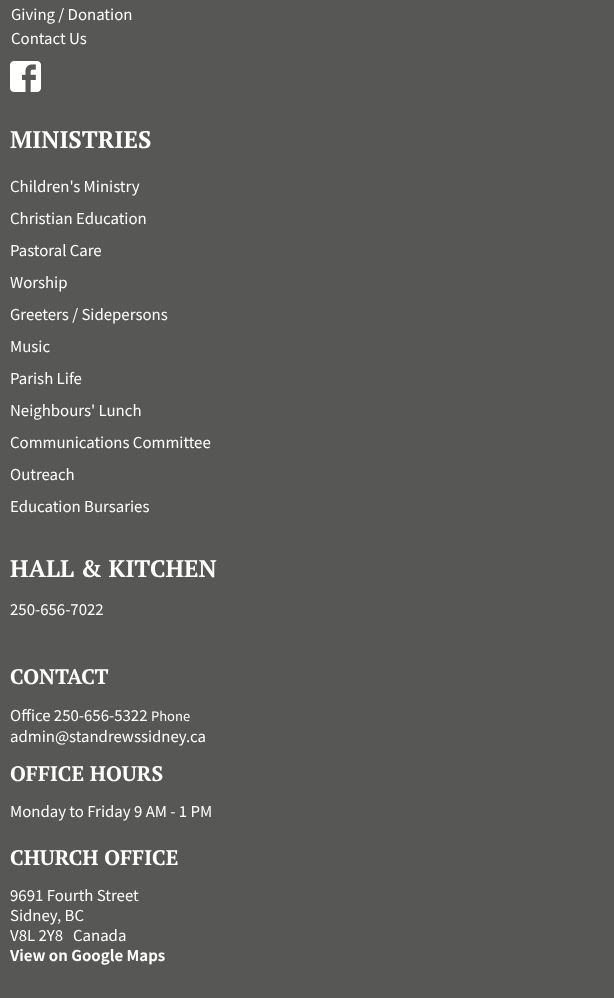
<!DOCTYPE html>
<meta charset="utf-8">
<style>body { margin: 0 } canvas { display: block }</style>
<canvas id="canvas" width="614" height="998"></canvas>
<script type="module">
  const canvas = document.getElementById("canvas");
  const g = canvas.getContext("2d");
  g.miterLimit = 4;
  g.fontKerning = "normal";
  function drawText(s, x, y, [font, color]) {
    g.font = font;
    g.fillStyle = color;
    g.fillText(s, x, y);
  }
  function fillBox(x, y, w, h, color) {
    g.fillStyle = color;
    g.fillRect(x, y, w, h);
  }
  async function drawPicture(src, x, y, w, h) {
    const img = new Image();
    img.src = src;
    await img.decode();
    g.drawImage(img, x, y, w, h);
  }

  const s1 = ["15px Noto Sans JP", "#FFFFFF"];
  const s2 = ["bold 24px PT Serif", "#FFFFFF"];
  const s3 = ["bold 21px PT Serif", "#FFFFFF"];
  const s4 = ["13px Noto Sans JP", "#FFFFFF"];
  const s5 = ["bold 15px Noto Sans JP", "#FFFFFF"];

  fillBox(0, 0, 614, 998, "#575756");
  drawText("Giving / Donation", 11, 20, s1);
  drawText("Contact Us", 11, 44, s1);
  await drawPicture("pic1.png", 10, 61, 31, 31);
  drawText("MINISTRIES", 10, 148, s2);
  drawText("Children's Ministry", 10, 192, s1);
  drawText("Christian Education", 10, 224, s1);
  drawText("Pastoral Care", 10, 256, s1);
  drawText("Worship", 10, 288, s1);
  drawText("Greeters / Sidepersons", 10, 320, s1);
  drawText("Music", 10, 352, s1);
  drawText("Parish Life", 10, 384, s1);
  drawText("Neighbours' Lunch", 10, 416, s1);
  drawText("Communications Committee", 10, 448, s1);
  drawText("Outreach", 10, 480, s1);
  drawText("Education Bursaries", 10, 512, s1);
  drawText("HALL & KITCHEN", 10, 577, s2);
  drawText("250-656-7022", 10, 615, s1);
  drawText("CONTACT", 10, 684, s3);
  drawText("Office 250-656-5322", 10, 721, s1);
  drawText("Phone", 151, 721, s4);
  drawText("admin@standrewssidney.ca", 10, 742, s1);
  drawText("OFFICE HOURS", 10, 781, s3);
  drawText("Monday to Friday 9 AM - 1 PM", 10, 817, s1);
  drawText("CHURCH OFFICE", 10, 865, s3);
  drawText("9691 Fourth Street", 10, 901, s1);
  drawText("Sidney, BC", 10, 921, s1);
  drawText("V8L 2Y8", 10, 941, s1);
  drawText("Canada", 73, 941, s1);
  drawText("View on Google Maps", 10, 961, s5);
</script>
